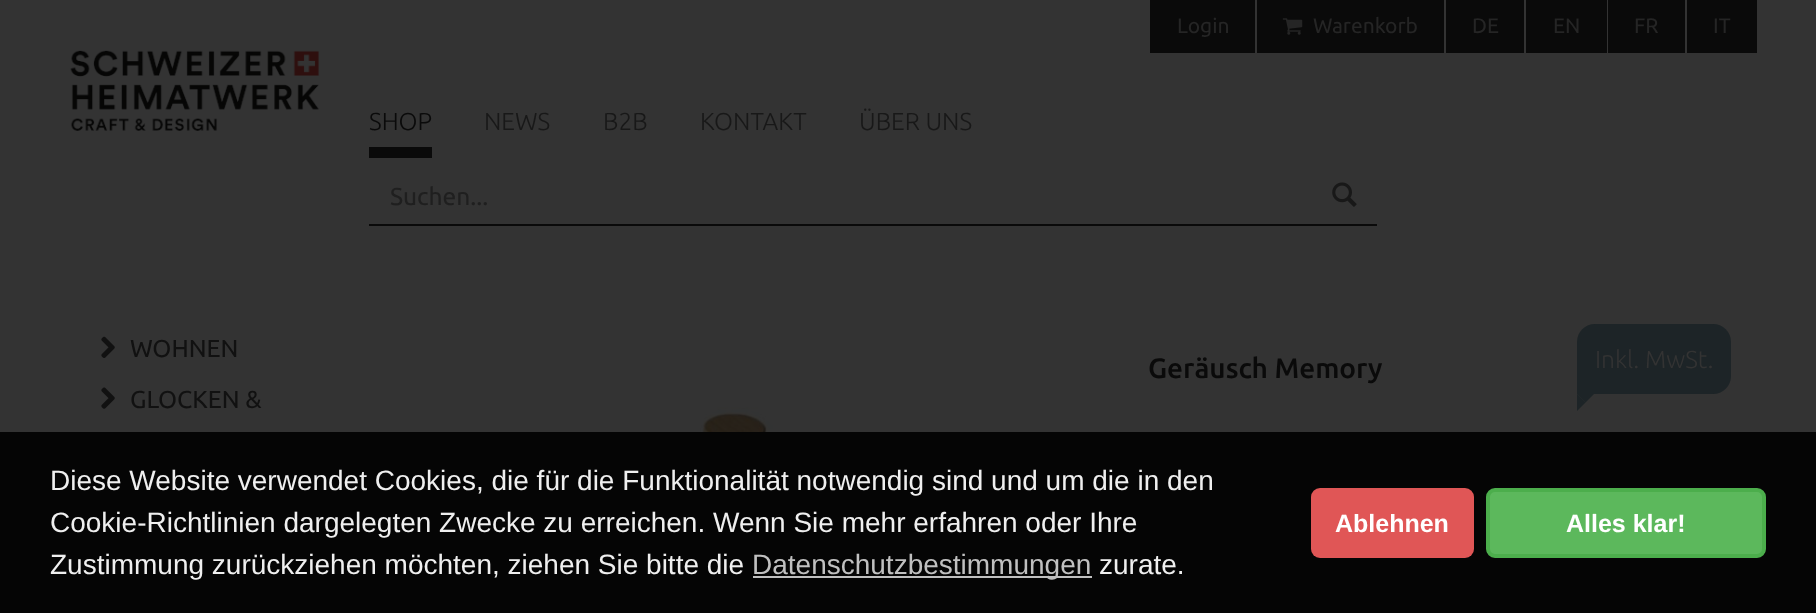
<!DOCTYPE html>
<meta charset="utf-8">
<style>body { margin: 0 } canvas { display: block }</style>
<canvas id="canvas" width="1816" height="613"></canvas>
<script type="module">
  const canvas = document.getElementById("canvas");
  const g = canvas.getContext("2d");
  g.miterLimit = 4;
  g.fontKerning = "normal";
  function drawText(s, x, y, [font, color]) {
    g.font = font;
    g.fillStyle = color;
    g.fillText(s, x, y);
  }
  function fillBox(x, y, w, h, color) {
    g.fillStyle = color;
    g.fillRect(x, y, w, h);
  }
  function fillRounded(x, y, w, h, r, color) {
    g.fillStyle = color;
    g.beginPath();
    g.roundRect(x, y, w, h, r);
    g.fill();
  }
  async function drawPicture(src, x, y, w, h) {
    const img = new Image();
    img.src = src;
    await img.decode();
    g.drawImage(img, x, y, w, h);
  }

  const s1 = ["21px Ubuntu", "#252525"];
  const s2 = ["300 24.5px Ubuntu", "#0A0A0A"];
  const s3 = ["300 24.5px Ubuntu", "#181818"];
  const s4 = ["24.5px Ubuntu", "#1F1F1F"];
  const s5 = ["24.5px Ubuntu", "#111111"];
  const s6 = ["500 28px Ubuntu", "#0A0A0A"];
  const s7 = ["300 24.5px Ubuntu", "#333333"];
  const s8 = ["28px Liberation Sans", "#EFEFEF"];
  const s9 = ["28px Liberation Sans", "#C0C0C0"];
  const s10 = ["bold 25px Liberation Sans", "#FFFFFF"];

  fillBox(0, 0, 1816, 613, "#333333");
  await drawPicture("pic1.png", 70, 50, 250, 81);
  fillBox(1150, 0, 105, 53, "#0A0A0A");
  drawText("Login", 1177, 33, s1);
  fillBox(1257, 0, 187, 53, "#0A0A0A");
  await drawPicture("pic2.png", 1282, 18, 21, 17);
  drawText("Warenkorb", 1313, 33, s1);
  fillBox(1446, 0, 78, 53, "#0A0A0A");
  drawText("DE", 1472, 33, s1);
  fillBox(1526, 0, 81, 53, "#0A0A0A");
  drawText("EN", 1553, 33, s1);
  fillBox(1608, 0, 77, 53, "#0A0A0A");
  drawText("FR", 1634, 33, s1);
  fillBox(1687, 0, 70, 53, "#0A0A0A");
  drawText("IT", 1713, 33, s1);
  fillBox(369, 147, 63, 11, "#0A0A0A");
  drawText("SHOP", 369, 130, s2);
  drawText("NEWS", 484, 130, s3);
  drawText("B2B", 603, 130, s3);
  drawText("KONTAKT", 700, 130, s3);
  drawText("ÜBER UNS", 859, 130, s3);
  fillBox(369, 224, 1008, 2, "#0A0A0A");
  await drawPicture("pic3.png", 1332, 182, 25, 25);
  drawText("Suchen...", 390, 205, s4);
  await drawPicture("pic4.png", 101, 336, 14, 22);
  drawText("WOHNEN", 130, 357, s5);
  await drawPicture("pic5.png", 101, 387, 14, 22);
  drawText("GLOCKEN &", 130, 408, s5);
  drawText("Geräusch Memory", 1148, 378, s6);
  g.fillStyle = "#1D2427";
  g.beginPath();
  g.roundRect(1577, 324, 154, 70, [18, 18, 18, 0]);
  g.fill();
  drawText("Inkl. MwSt.", 1595, 368, s7);
  g.fillStyle = "#1D2427";
  g.beginPath();
  g.moveTo(1577, 394);
  g.lineTo(1594, 394);
  g.lineTo(1585.5, 402.5);
  g.closePath();
  g.fill();
  g.beginPath();
  g.moveTo(1577, 411);
  g.lineTo(1577, 394);
  g.lineTo(1585.5, 402.5);
  g.closePath();
  g.fill();
  await drawPicture("pic6.png", 397, 407, 599, 25);
  fillBox(0, 432, 1816, 181, "#050505");
  drawText("Diese Website verwendet Cookies, die für die Funktionalität notwendig sind und um die in den", 50, 490, s8);
  drawText("Cookie-Richtlinien dargelegten Zwecke zu erreichen. Wenn Sie mehr erfahren oder Ihre", 50, 532, s8);
  drawText("Zustimmung zurückziehen möchten, ziehen Sie bitte die", 50, 574, s8);
  fillBox(753, 576, 339, 2, "#C0C0C0");
  drawText("Datenschutzbestimmungen", 752, 574, s9);
  drawText("zurate.", 1099, 574, s8);
  fillRounded(1311, 488, 163, 70, 9, "#E05656");
  drawText("Ablehnen", 1335, 532, s10);
  g.fillStyle = "#5CB85C";
  g.beginPath();
  g.roundRect(1488, 490, 276, 66, 7);
  g.fill();
  g.strokeStyle = "#4CAE4C";
  g.lineWidth = 4;
  g.stroke();
  drawText("Alles klar!", 1566, 532, s10);
</script>
